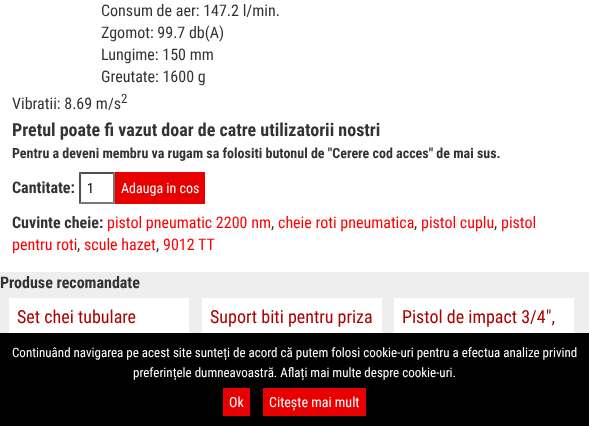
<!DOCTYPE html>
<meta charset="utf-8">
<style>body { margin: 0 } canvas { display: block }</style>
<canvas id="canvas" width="589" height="426"></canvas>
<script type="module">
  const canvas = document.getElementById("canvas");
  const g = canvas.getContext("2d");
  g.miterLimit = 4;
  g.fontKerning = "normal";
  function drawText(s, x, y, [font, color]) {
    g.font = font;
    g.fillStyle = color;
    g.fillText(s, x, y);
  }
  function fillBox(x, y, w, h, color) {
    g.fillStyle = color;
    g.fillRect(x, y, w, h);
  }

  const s1 = ["16px Roboto Condensed", "#333333"];
  const s2 = ["13px Roboto Condensed", "#333333"];
  const s3 = ["bold 18px Roboto Condensed", "#333333"];
  const s4 = ["bold 14px Roboto Condensed", "#333333"];
  const s5 = ["bold 16px Roboto Condensed", "#333333"];
  const s6 = ["14px Roboto Condensed", "#000000"];
  const s7 = ["14px Roboto Condensed", "#FFFFFF"];
  const s8 = ["16px Roboto Condensed", "#FF0000"];
  const s9 = ["18px Roboto Condensed", "#AC0100"];
  const s10 = ["13px Roboto Condensed", "#FFFFFF"];

  fillBox(0, 0, 589, 426, "#EEEEEE");
  fillBox(0, 0, 589, 272, "#FFFFFF");
  drawText("Consum de aer: 147.2 l/min.", 101, 16, s1);
  drawText("Zgomot: 99.7 db(A)", 101, 38, s1);
  drawText("Lungime: 150 mm", 101, 60, s1);
  drawText("Greutate: 1600 g", 101, 82, s1);
  drawText("Vibratii: 8.69 m/s", 12, 109, s1);
  drawText("2", 121, 103, s2);
  drawText("Pretul poate fi vazut doar de catre utilizatorii nostri", 12, 136, s3);
  drawText("Pentru a deveni membru va rugam sa folositi butonul de \"Cerere cod acces\" de mai sus.", 12, 158, s4);
  drawText("Cantitate:", 12, 193, s5);
  g.fillStyle = "#4F4F4F";
  g.beginPath();
  g.moveTo(79, 172);
  g.lineTo(115, 172);
  g.lineTo(113, 174);
  g.lineTo(81, 174);
  g.closePath();
  g.fill();
  g.fillStyle = "#767676";
  g.beginPath();
  g.moveTo(115, 172);
  g.lineTo(115, 204);
  g.lineTo(113, 202);
  g.lineTo(113, 174);
  g.closePath();
  g.fill();
  g.beginPath();
  g.moveTo(115, 204);
  g.lineTo(79, 204);
  g.lineTo(81, 202);
  g.lineTo(113, 202);
  g.closePath();
  g.fill();
  g.fillStyle = "#4F4F4F";
  g.beginPath();
  g.moveTo(79, 204);
  g.lineTo(79, 172);
  g.lineTo(81, 174);
  g.lineTo(81, 202);
  g.closePath();
  g.fill();
  drawText("1", 87, 193, s6);
  fillBox(115, 172, 90, 32, "#E80001");
  drawText("Adauga in cos", 121, 193, s7);
  drawText("Cuvinte cheie:", 12, 228, s5);
  drawText("pistol pneumatic 2200 nm", 107, 228, s8);
  drawText(",", 271, 228, s1);
  drawText("cheie roti pneumatica", 278, 228, s8);
  drawText(",", 414, 228, s1);
  drawText("pistol cuplu", 421, 228, s8);
  drawText(",", 494, 228, s1);
  drawText("pistol", 501, 228, s8);
  drawText("pentru roti", 12, 250, s8);
  drawText(",", 77, 250, s1);
  drawText("scule hazet", 84, 250, s8);
  drawText(",", 156, 250, s1);
  drawText("9012 TT", 163, 250, s8);
  drawText("Produse recomandate", 0, 288, s5);
  fillBox(9, 298, 180, 35, "#FFFFFF");
  drawText("Set chei tubulare", 17, 323, s9);
  fillBox(202, 298, 180, 35, "#FFFFFF");
  drawText("Suport biti pentru priza", 210, 323, s9);
  fillBox(394, 298, 180, 35, "#FFFFFF");
  drawText("Pistol de impact 3/4\",", 402, 323, s9);
  fillBox(0, 333, 589, 93, "#000000");
  drawText("Continuând navigarea pe acest site sunteți de acord că putem folosi cookie-uri pentru a efectua analize privind", 12, 357, s10);
  drawText("preferințele dumneavoastră. Aflați mai multe despre cookie-uri.", 133, 377, s10);
  fillBox(223, 388, 27, 28, "#E80001");
  drawText("Ok", 229, 407, s7);
  fillBox(263, 388, 103, 28, "#E80001");
  drawText("Citește mai mult", 269, 407, s7);
</script>
